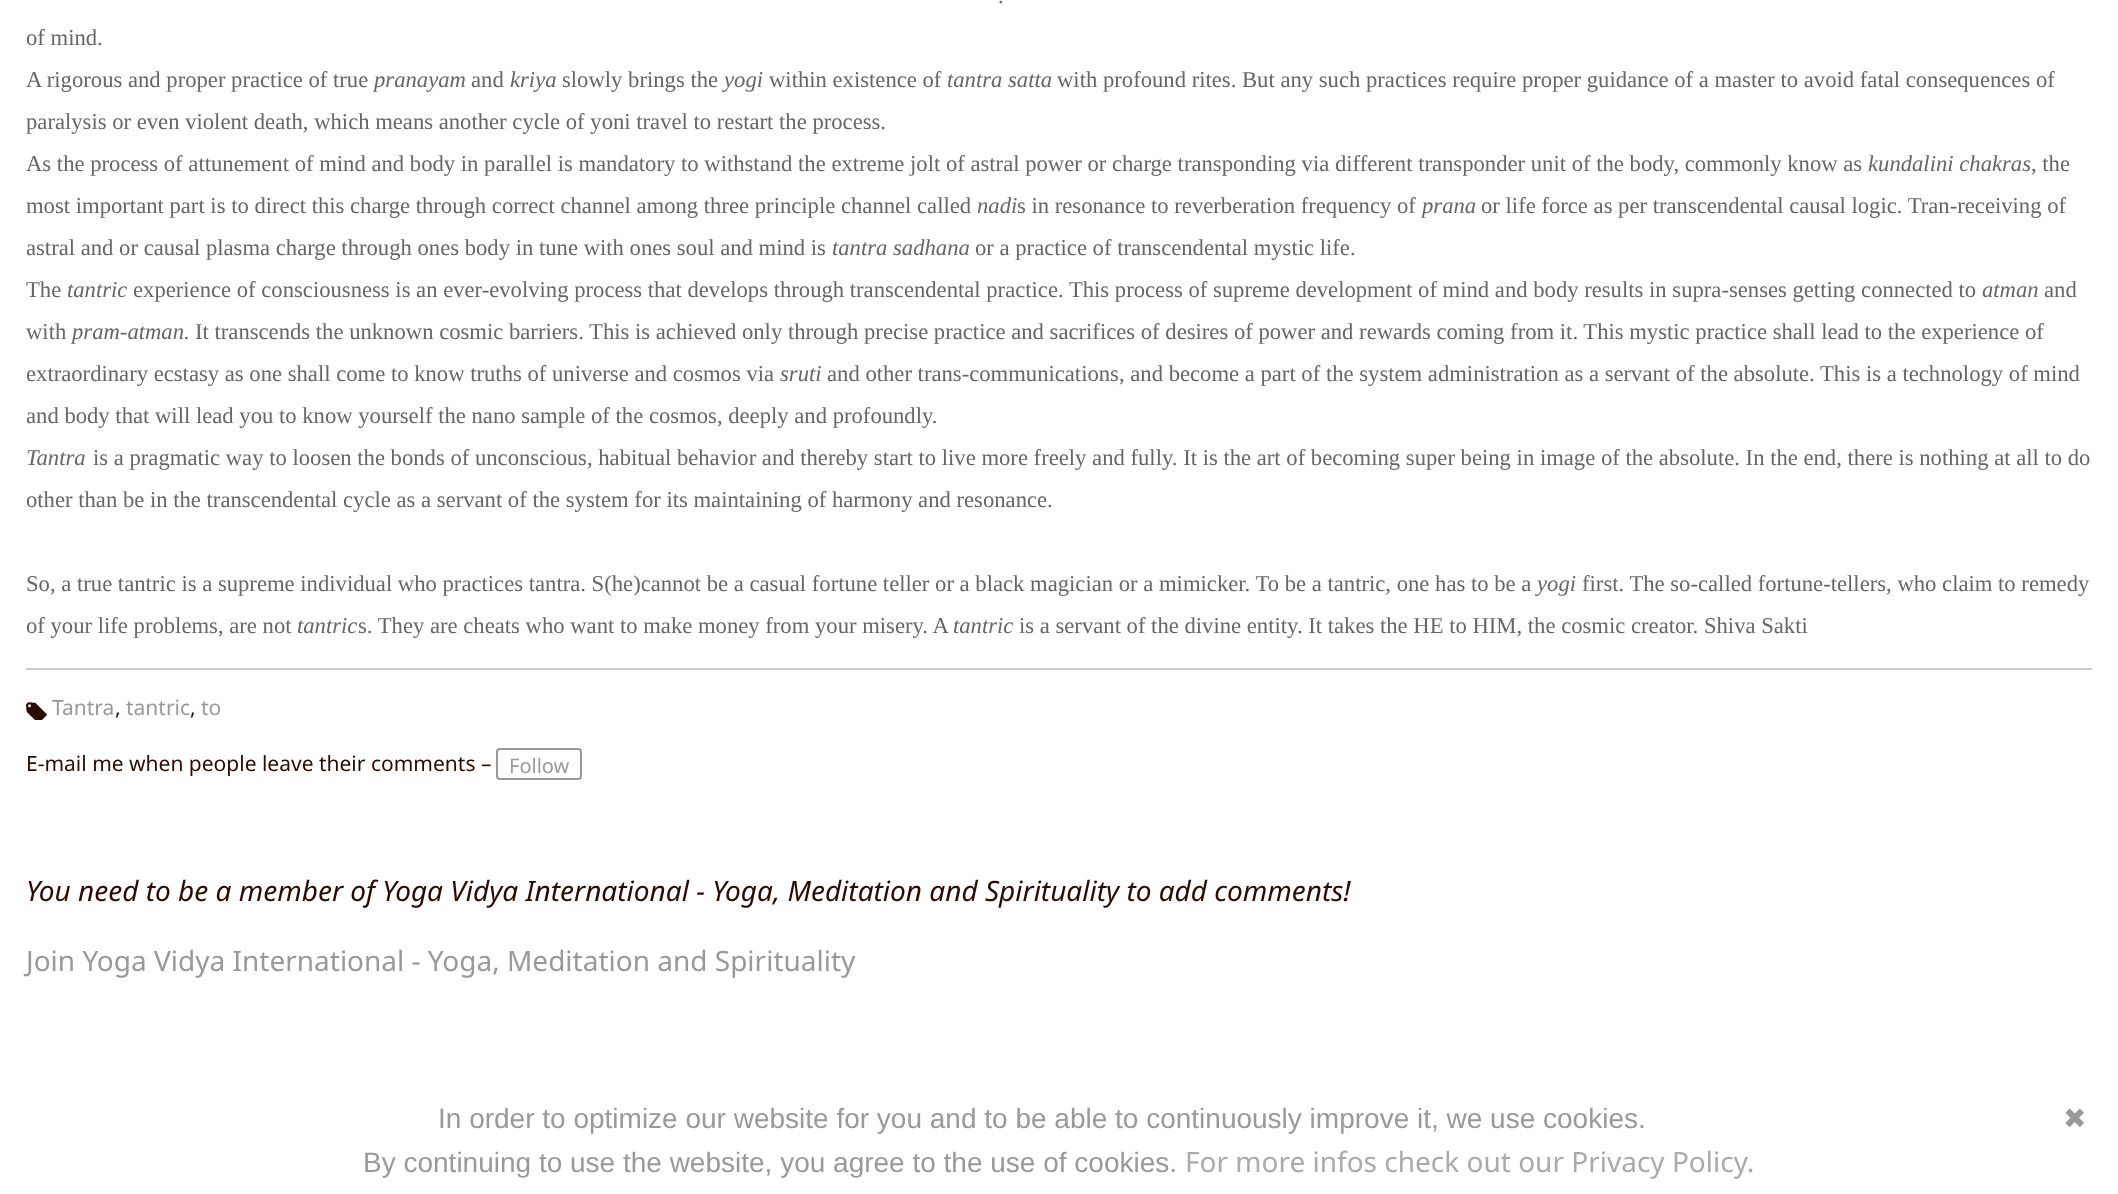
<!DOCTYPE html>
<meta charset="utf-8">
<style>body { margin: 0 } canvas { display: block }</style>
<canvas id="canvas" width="2118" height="1194"></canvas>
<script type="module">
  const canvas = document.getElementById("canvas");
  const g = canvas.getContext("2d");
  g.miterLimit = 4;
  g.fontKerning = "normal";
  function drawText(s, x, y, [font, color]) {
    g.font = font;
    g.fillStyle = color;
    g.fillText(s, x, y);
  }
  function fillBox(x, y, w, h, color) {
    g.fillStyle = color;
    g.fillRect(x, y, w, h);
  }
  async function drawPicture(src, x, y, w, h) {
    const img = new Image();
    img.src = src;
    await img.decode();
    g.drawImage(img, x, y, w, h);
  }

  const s1 = ["22.67px Liberation Serif", "#666666"];
  const s2 = ["italic 22.67px Liberation Serif", "#666666"];
  const s3 = ["21px Noto Sans", "#999999"];
  const s4 = ["21px Noto Sans", "#2B0C03"];
  const s5 = ["20px Noto Sans", "#999999"];
  const s6 = ["italic 28px Noto Sans", "#2B0C03"];
  const s7 = ["28px Noto Sans", "#999999"];
  const s8 = ["28px Liberation Sans", "#999999"];
  const s9 = ["28px DejaVu Sans", "#999999"];
  const s10 = ["28px Noto Sans", "#AAAAAA"];

  fillBox(0, 0, 2118, 1194, "#FFFFFF");
  drawText(".", 998, 3, s1);
  drawText("of mind.", 26, 45, s1);
  drawText("A rigorous and proper practice of true", 26, 87, s1);
  drawText("pranayam", 374, 87, s2);
  drawText("and", 471, 87, s1);
  drawText("kriya", 510, 87, s2);
  drawText("slowly brings the", 562, 87, s1);
  drawText("yogi", 724, 87, s2);
  drawText("within existence of", 769, 87, s1);
  drawText("tantra satta", 947, 87, s2);
  drawText("with profound rites. But any such practices require proper guidance of a master to avoid fatal consequences of", 1057, 87, s1);
  drawText("paralysis or even violent death, which means another cycle of yoni travel to restart the process.", 26, 129, s1);
  drawText("As the process of attunement of mind and body in parallel is mandatory to withstand the extreme jolt of astral power or charge transponding via different transponder unit of the body, commonly know as", 26, 171, s1);
  drawText("kundalini chakras", 1868, 171, s2);
  drawText(", the", 2031, 171, s1);
  drawText("most important part is to direct this charge through correct channel among three principle channel called", 26, 213, s1);
  drawText("nadi", 977, 213, s2);
  drawText("s in resonance to reverberation frequency of", 1017, 213, s1);
  drawText("prana", 1422, 213, s2);
  drawText("or life force as per transcendental causal logic. Tran-receiving of", 1481, 213, s1);
  drawText("astral and or causal plasma charge through ones body in tune with ones soul and mind is", 26, 255, s1);
  drawText("tantra sadhana", 832, 255, s2);
  drawText("or a practice of transcendental mystic life.", 975, 255, s1);
  drawText("The", 26, 297, s1);
  drawText("tantric", 67, 297, s2);
  drawText("experience of consciousness is an ever-evolving process that develops through transcendental practice. This process of supreme development of mind and body results in supra-senses getting connected to", 133, 297, s1);
  drawText("atman", 1982, 297, s2);
  drawText("and", 2044, 297, s1);
  drawText("with", 26, 339, s1);
  drawText("pram-atman.", 72, 339, s2);
  drawText("It transcends the unknown cosmic barriers. This is achieved only through precise practice and sacrifices of desires of power and rewards coming from it. This mystic practice shall lead to the experience of", 195, 339, s1);
  drawText("extraordinary ecstasy as one shall come to know truths of universe and cosmos via", 26, 381, s1);
  drawText("sruti", 780, 381, s2);
  drawText("and other trans-communications, and become a part of the system administration as a servant of the absolute. This is a technology of mind", 827, 381, s1);
  drawText("and body that will lead you to know yourself the nano sample of the cosmos, deeply and profoundly.", 26, 423, s1);
  drawText("Tantra", 26, 465, s2);
  drawText("is a pragmatic way to loosen the bonds of unconscious, habitual behavior and thereby start to live more freely and fully. It is the art of becoming super being in image of the absolute. In the end, there is nothing at all to do", 93, 465, s1);
  drawText("other than be in the transcendental cycle as a servant of the system for its maintaining of harmony and resonance.", 26, 507, s1);
  drawText("So, a true tantric is a supreme individual who practices tantra. S(he)cannot be a casual fortune teller or a black magician or a mimicker. To be a tantric, one has to be a", 26, 591, s1);
  drawText("yogi", 1537, 591, s2);
  drawText("first. The so-called fortune-tellers, who claim to remedy", 1582, 591, s1);
  drawText("of your life problems, are not", 26, 633, s1);
  drawText("tantric", 297, 633, s2);
  drawText("s. They are cheats who want to make money from your misery. A", 358, 633, s1);
  drawText("tantric", 953, 633, s2);
  drawText("is a servant of the divine entity. It takes the HE to HIM, the cosmic creator. Shiva Sakti", 1019, 633, s1);
  fillBox(26, 668, 2066, 2, "#CCCCCC");
  await drawPicture("pic1.png", 26, 702, 21, 18);
  drawText("Tantra", 52, 715, s3);
  drawText(",", 115, 715, s4);
  drawText("tantric", 126, 715, s3);
  drawText(",", 190, 715, s4);
  drawText("to", 201, 715, s3);
  drawText("E-mail me when people leave their comments –", 26, 771, s4);
  g.beginPath();
  g.roundRect(497, 749, 84, 30, 3);
  g.strokeStyle = "#999999";
  g.lineWidth = 2;
  g.stroke();
  drawText("Follow", 509, 773, s5);
  drawText("You need to be a member of Yoga Vidya International - Yoga, Meditation and Spirituality to add comments!", 26, 901, s6);
  drawText("Join Yoga Vidya International - Yoga, Meditation and Spirituality", 26, 971, s7);
  drawText("In order to optimize our website for you and to be able to continuously improve it, we use cookies.", 438, 1128, s8);
  drawText("✖", 2063, 1128, s9);
  drawText("By continuing to use the website, you agree to the use of cookies.", 363, 1172, s8);
  drawText("For more infos check out our Privacy Policy.", 1185, 1172, s10);
</script>
